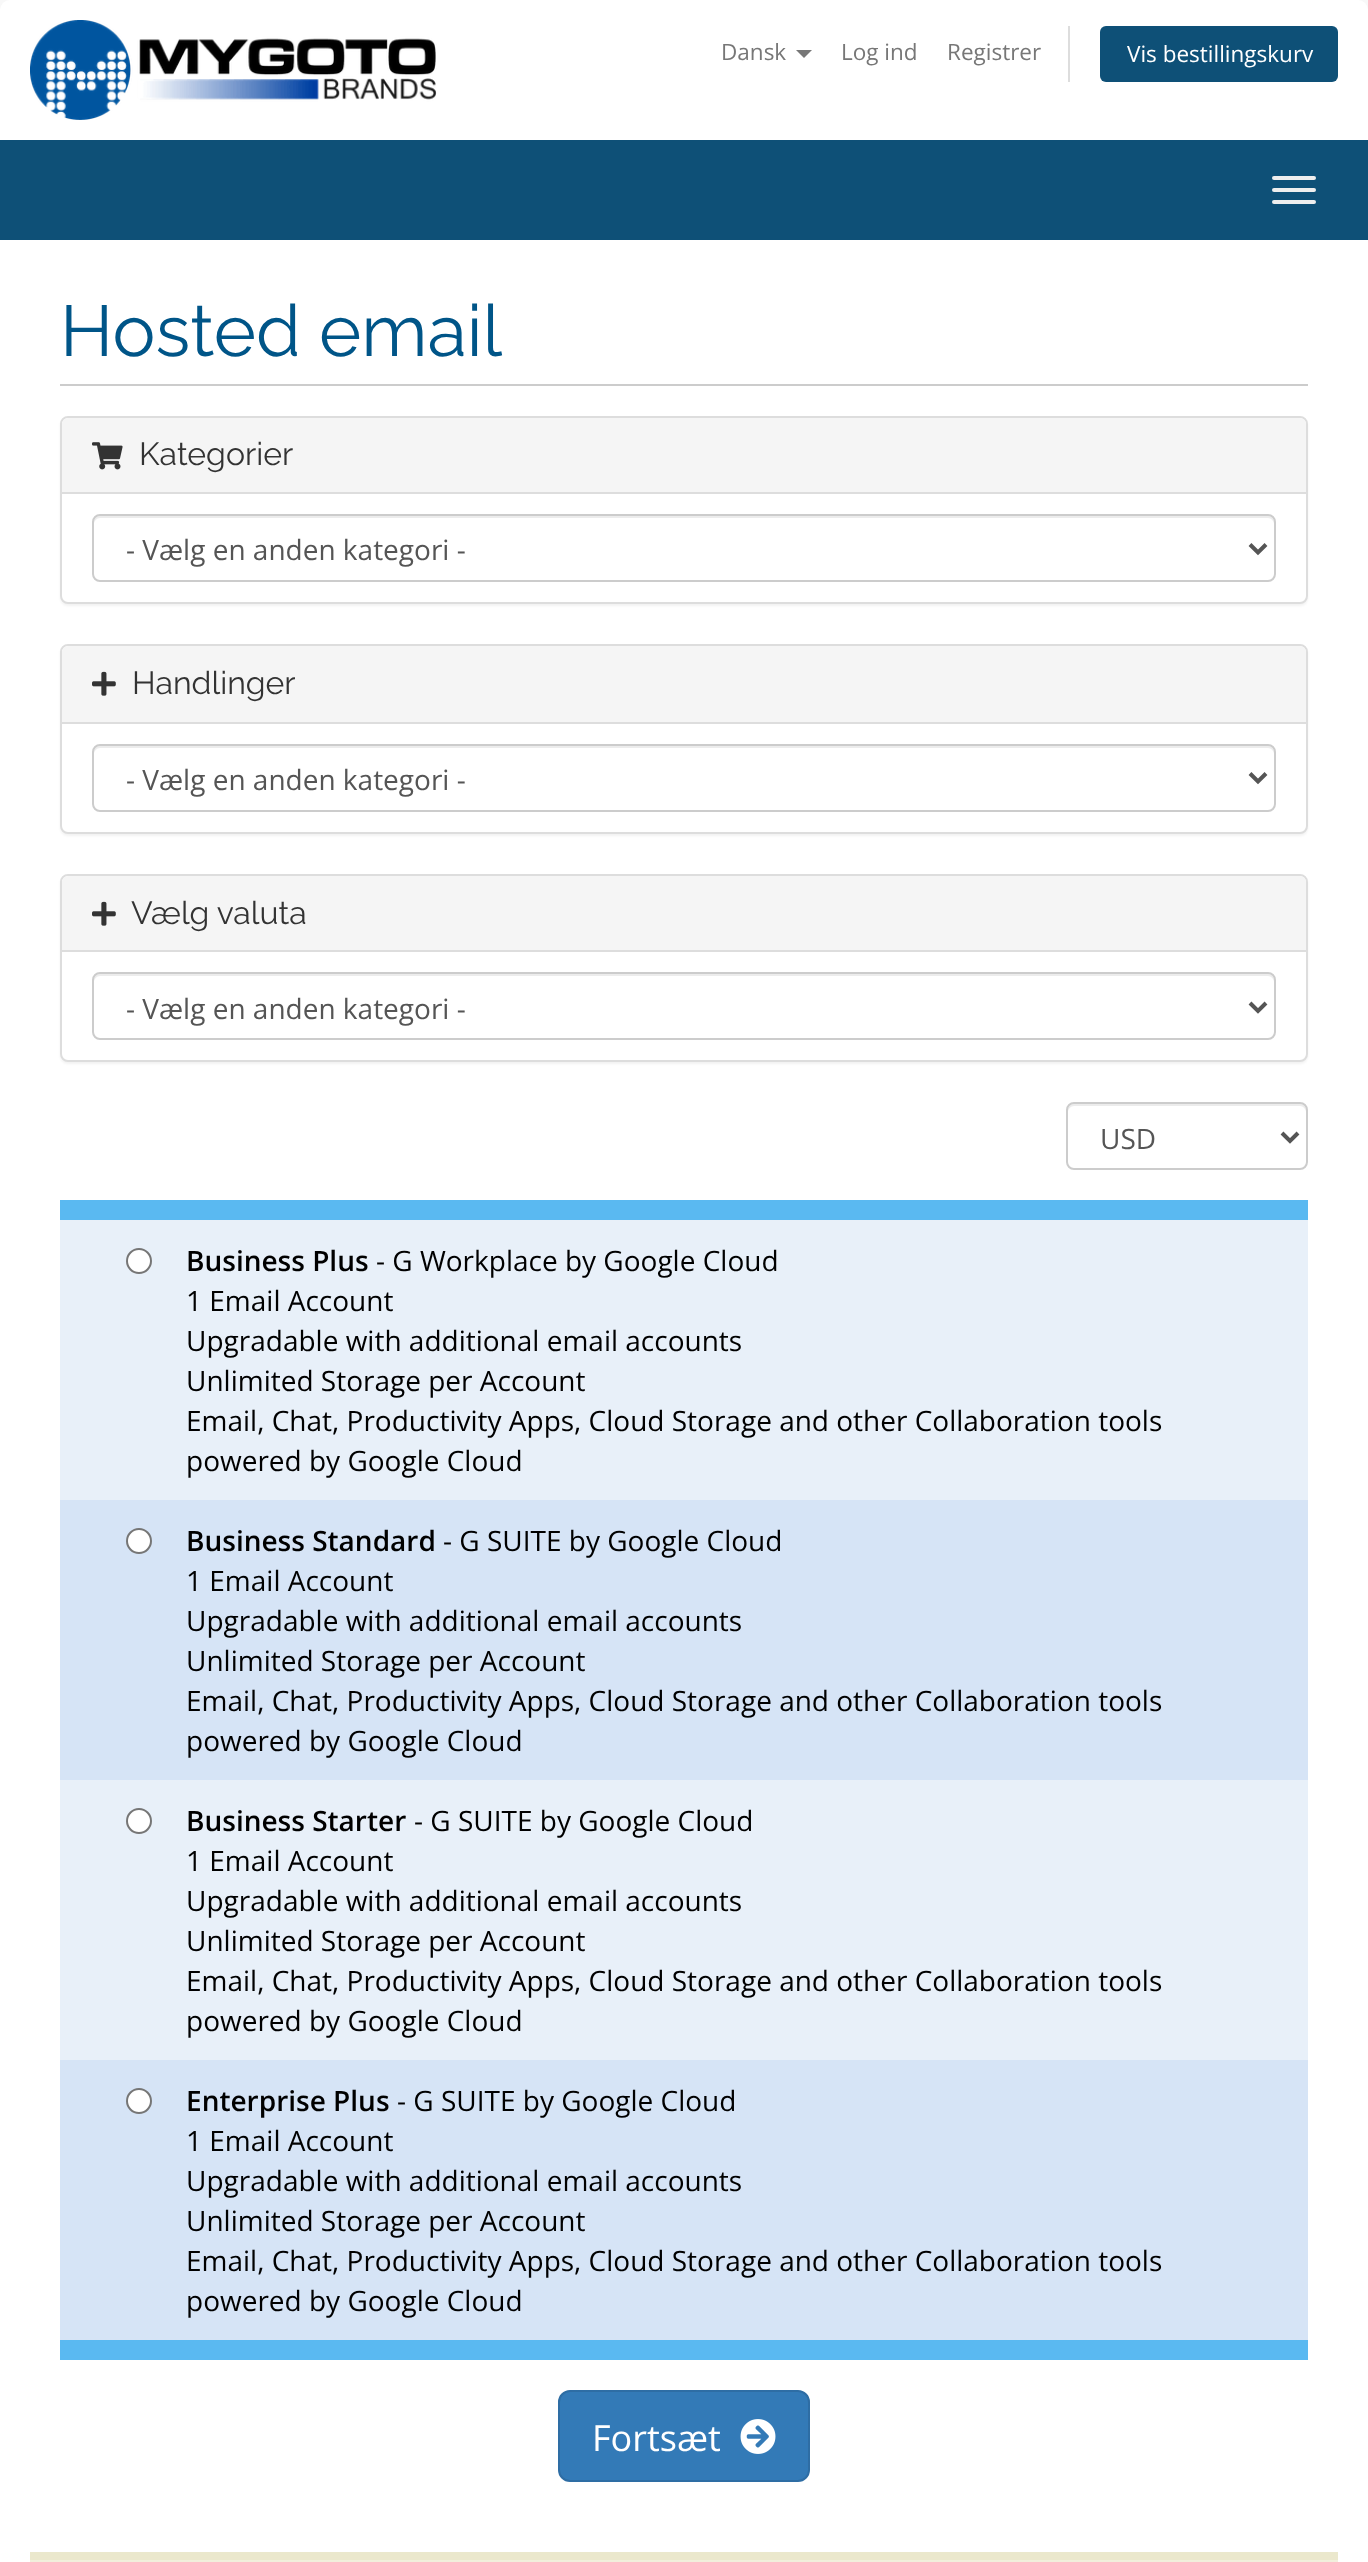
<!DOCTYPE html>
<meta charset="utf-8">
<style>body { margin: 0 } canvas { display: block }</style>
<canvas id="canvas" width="1368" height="2562"></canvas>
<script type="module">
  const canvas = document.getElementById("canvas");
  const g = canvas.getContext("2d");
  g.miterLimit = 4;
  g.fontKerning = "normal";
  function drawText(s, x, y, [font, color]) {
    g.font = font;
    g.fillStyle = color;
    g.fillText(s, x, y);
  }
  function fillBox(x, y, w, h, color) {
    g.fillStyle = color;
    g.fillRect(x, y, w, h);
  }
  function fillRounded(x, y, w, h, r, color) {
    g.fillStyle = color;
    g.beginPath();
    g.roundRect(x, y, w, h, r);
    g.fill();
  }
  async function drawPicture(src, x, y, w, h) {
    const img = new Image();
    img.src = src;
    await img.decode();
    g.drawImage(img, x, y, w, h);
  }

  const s1 = ["22.5px Open Sans", "#777777"];
  const s2 = ["22.5px Open Sans", "#FFFFFF"];
  const s3 = ["72px Raleway", "#005588"];
  const s4 = ["32px Raleway", "#333333"];
  const s5 = ["28px Open Sans", "#555555"];
  const s6 = ["600 28px Open Sans", "#000000"];
  const s7 = ["28px Open Sans", "#000000"];
  const s8 = ["36px Open Sans", "#FFFFFF"];

  fillBox(0, 0, 1368, 2562, "#F8F8F8");
  g.fillStyle = "#FFFFFF";
  g.beginPath();
  g.roundRect(0, 0, 1368, 140, [10, 10, 0, 0]);
  g.fill();
  await drawPicture("pic1.png", 30, 20, 407, 100);
  drawText("Dansk", 721, 60, s1);
  g.beginPath();
  g.moveTo(796, 50);
  g.lineTo(812, 50);
  g.lineTo(804, 58);
  g.closePath();
  g.fill();
  drawText("Log ind", 841, 60, s1);
  drawText("Registrer", 947, 60, s1);
  fillBox(1068, 26, 2, 56, "#DDDDDD");
  fillRounded(1100, 26, 238, 56, 6, "#0E5077");
  drawText("Vis bestillingskurv", 1127, 62, s2);
  fillBox(0, 140, 1368, 100, "#0E5077");
  fillRounded(1272, 176, 44, 4, 2, "#EEEEEE");
  fillRounded(1272, 188, 44, 4, 2, "#EEEEEE");
  fillRounded(1272, 200, 44, 4, 2, "#EEEEEE");
  fillBox(0, 240, 1368, 2322, "#FFFFFF");
  fillBox(60, 384, 1248, 2, "#CCCCCC");
  drawText("Hosted email", 60, 356, s3);
  g.fillStyle = "rgba(0, 0, 0, 0.05)";
  g.filter = "blur(1px)";
  g.beginPath();
  g.roundRect(60, 418, 1248, 188, 8);
  g.fill();
  g.filter = "none";
  g.fillStyle = "#FFFFFF";
  g.beginPath();
  g.roundRect(61, 417, 1246, 186, 7);
  g.fill();
  g.strokeStyle = "#DDDDDD";
  g.lineWidth = 2;
  g.stroke();
  g.fillStyle = "#F5F5F5";
  g.beginPath();
  g.roundRect(62, 418, 1244, 76, [6, 6, 0, 0]);
  g.fill();
  fillBox(62, 492, 1244, 2, "#DDDDDD");
  await drawPicture("pic2.png", 92, 442, 31, 28);
  drawText("Kategorier", 139, 465, s4);
  g.fillStyle = "#ECECEC";
  g.beginPath();
  g.moveTo(100, 518);
  g.lineTo(1268, 518);
  g.bezierCurveTo(1271, 518, 1274, 521, 1274, 524);
  g.lineTo(1274, 522);
  g.bezierCurveTo(1274, 519, 1271, 516, 1268, 516);
  g.lineTo(100, 516);
  g.bezierCurveTo(97, 516, 94, 519, 94, 522);
  g.lineTo(94, 524);
  g.bezierCurveTo(94, 521, 97, 518, 100, 518);
  g.closePath();
  g.fill();
  g.beginPath();
  g.roundRect(93, 515, 1182, 66, 7);
  g.strokeStyle = "#CCCCCC";
  g.stroke();
  g.beginPath();
  g.moveTo(1250, 544.5);
  g.lineTo(1258, 552.5);
  g.lineTo(1266, 544.5);
  g.strokeStyle = "#555555";
  g.lineWidth = 4;
  g.stroke();
  drawText("- Vælg en anden kategori -", 126, 560, s5);
  g.fillStyle = "rgba(0, 0, 0, 0.05)";
  g.filter = "blur(1px)";
  g.beginPath();
  g.roundRect(60, 646, 1248, 190, 8);
  g.fill();
  g.filter = "none";
  g.fillStyle = "#FFFFFF";
  g.beginPath();
  g.roundRect(61, 645, 1246, 188, 7);
  g.fill();
  g.strokeStyle = "#DDDDDD";
  g.lineWidth = 2;
  g.stroke();
  g.fillStyle = "#F5F5F5";
  g.beginPath();
  g.roundRect(62, 646, 1244, 78, [6, 6, 0, 0]);
  g.fill();
  fillBox(62, 722, 1244, 2, "#DDDDDD");
  await drawPicture("pic3.png", 92, 671, 24, 25);
  drawText("Handlinger", 132, 694, s4);
  g.fillStyle = "#ECECEC";
  g.beginPath();
  g.moveTo(100, 748);
  g.lineTo(1268, 748);
  g.bezierCurveTo(1271, 748, 1274, 751, 1274, 754);
  g.lineTo(1274, 752);
  g.bezierCurveTo(1274, 749, 1271, 746, 1268, 746);
  g.lineTo(100, 746);
  g.bezierCurveTo(97, 746, 94, 749, 94, 752);
  g.lineTo(94, 754);
  g.bezierCurveTo(94, 751, 97, 748, 100, 748);
  g.closePath();
  g.fill();
  g.beginPath();
  g.roundRect(93, 745, 1182, 66, 7);
  g.strokeStyle = "#CCCCCC";
  g.stroke();
  g.beginPath();
  g.moveTo(1250, 773.5);
  g.lineTo(1258, 781.5);
  g.lineTo(1266, 773.5);
  g.strokeStyle = "#555555";
  g.lineWidth = 4;
  g.stroke();
  drawText("- Vælg en anden kategori -", 126, 790, s5);
  g.fillStyle = "rgba(0, 0, 0, 0.05)";
  g.filter = "blur(1px)";
  g.beginPath();
  g.roundRect(60, 876, 1248, 188, 8);
  g.fill();
  g.filter = "none";
  g.fillStyle = "#FFFFFF";
  g.beginPath();
  g.roundRect(61, 875, 1246, 186, 7);
  g.fill();
  g.strokeStyle = "#DDDDDD";
  g.lineWidth = 2;
  g.stroke();
  g.fillStyle = "#F5F5F5";
  g.beginPath();
  g.roundRect(62, 876, 1244, 76, [6, 6, 0, 0]);
  g.fill();
  fillBox(62, 950, 1244, 2, "#DDDDDD");
  await drawPicture("pic3.png", 92, 901, 24, 25);
  drawText("Vælg valuta", 131, 924, s4);
  g.fillStyle = "#ECECEC";
  g.beginPath();
  g.moveTo(100, 976);
  g.lineTo(1268, 976);
  g.bezierCurveTo(1271, 976, 1274, 979, 1274, 982);
  g.lineTo(1274, 980);
  g.bezierCurveTo(1274, 977, 1271, 974, 1268, 974);
  g.lineTo(100, 974);
  g.bezierCurveTo(97, 974, 94, 977, 94, 980);
  g.lineTo(94, 982);
  g.bezierCurveTo(94, 979, 97, 976, 100, 976);
  g.closePath();
  g.fill();
  g.beginPath();
  g.roundRect(93, 973, 1182, 66, 7);
  g.strokeStyle = "#CCCCCC";
  g.stroke();
  g.beginPath();
  g.moveTo(1250, 1003);
  g.lineTo(1258, 1011);
  g.lineTo(1266, 1003);
  g.strokeStyle = "#555555";
  g.lineWidth = 4;
  g.stroke();
  drawText("- Vælg en anden kategori -", 126, 1019, s5);
  g.fillStyle = "#ECECEC";
  g.beginPath();
  g.moveTo(1074, 1106);
  g.lineTo(1300, 1106);
  g.bezierCurveTo(1303, 1106, 1306, 1109, 1306, 1112);
  g.lineTo(1306, 1110);
  g.bezierCurveTo(1306, 1107, 1303, 1104, 1300, 1104);
  g.lineTo(1074, 1104);
  g.bezierCurveTo(1071, 1104, 1068, 1107, 1068, 1110);
  g.lineTo(1068, 1112);
  g.bezierCurveTo(1068, 1109, 1071, 1106, 1074, 1106);
  g.closePath();
  g.fill();
  g.beginPath();
  g.roundRect(1067, 1103, 240, 66, 7);
  g.strokeStyle = "#CCCCCC";
  g.lineWidth = 2;
  g.stroke();
  g.beginPath();
  g.moveTo(1282, 1133);
  g.lineTo(1290, 1141);
  g.lineTo(1298, 1133);
  g.strokeStyle = "#555555";
  g.lineWidth = 4;
  g.stroke();
  drawText("USD", 1100, 1149, s5);
  fillBox(60, 1200, 1248, 20, "#5AB9F1");
  fillBox(60, 2340, 1248, 20, "#5AB9F1");
  fillBox(60, 1220, 1248, 280, "#E8F0F9");
  g.fillStyle = "#FFFFFF";
  g.beginPath();
  g.arc(139, 1261, 12, 0, Math.PI * 2);
  g.fill();
  g.strokeStyle = "#767676";
  g.lineWidth = 2;
  g.stroke();
  drawText("Business Plus", 186, 1271, s6);
  drawText("- G Workplace by Google Cloud", 376, 1271, s7);
  drawText("1 Email Account", 186, 1311, s7);
  drawText("Upgradable with additional email accounts", 186, 1351, s7);
  drawText("Unlimited Storage per Account", 186, 1391, s7);
  drawText("Email, Chat, Productivity Apps, Cloud Storage and other Collaboration tools", 186, 1431, s7);
  drawText("powered by Google Cloud", 186, 1471, s7);
  fillBox(60, 1500, 1248, 280, "#D6E4F6");
  g.fillStyle = "#FFFFFF";
  g.beginPath();
  g.arc(139, 1541, 12, 0, Math.PI * 2);
  g.fill();
  g.stroke();
  drawText("Business Standard", 186, 1551, s6);
  drawText("- G SUITE by Google Cloud", 443, 1551, s7);
  drawText("1 Email Account", 186, 1591, s7);
  drawText("Upgradable with additional email accounts", 186, 1631, s7);
  drawText("Unlimited Storage per Account", 186, 1671, s7);
  drawText("Email, Chat, Productivity Apps, Cloud Storage and other Collaboration tools", 186, 1711, s7);
  drawText("powered by Google Cloud", 186, 1751, s7);
  fillBox(60, 1780, 1248, 280, "#E8F0F9");
  g.fillStyle = "#FFFFFF";
  g.beginPath();
  g.arc(139, 1821, 12, 0, Math.PI * 2);
  g.fill();
  g.stroke();
  drawText("Business Starter", 186, 1831, s6);
  drawText("- G SUITE by Google Cloud", 414, 1831, s7);
  drawText("1 Email Account", 186, 1871, s7);
  drawText("Upgradable with additional email accounts", 186, 1911, s7);
  drawText("Unlimited Storage per Account", 186, 1951, s7);
  drawText("Email, Chat, Productivity Apps, Cloud Storage and other Collaboration tools", 186, 1991, s7);
  drawText("powered by Google Cloud", 186, 2031, s7);
  fillBox(60, 2060, 1248, 280, "#D6E4F6");
  g.fillStyle = "#FFFFFF";
  g.beginPath();
  g.arc(139, 2101, 12, 0, Math.PI * 2);
  g.fill();
  g.stroke();
  drawText("Enterprise Plus", 186, 2111, s6);
  drawText("- G SUITE by Google Cloud", 397, 2111, s7);
  drawText("1 Email Account", 186, 2151, s7);
  drawText("Upgradable with additional email accounts", 186, 2191, s7);
  drawText("Unlimited Storage per Account", 186, 2231, s7);
  drawText("Email, Chat, Productivity Apps, Cloud Storage and other Collaboration tools", 186, 2271, s7);
  drawText("powered by Google Cloud", 186, 2311, s7);
  g.fillStyle = "#337AB7";
  g.beginPath();
  g.roundRect(559, 2391, 250, 90, 11);
  g.fill();
  g.strokeStyle = "#2E6DA4";
  g.stroke();
  drawText("Fortsæt", 592, 2451, s8);
  await drawPicture("pic4.png", 740, 2419, 36, 35);
  fillBox(30, 2560, 1308, 2, "#F1EFDC");
  fillBox(30, 2552, 1308, 8, "#EBE8CD");
</script>
